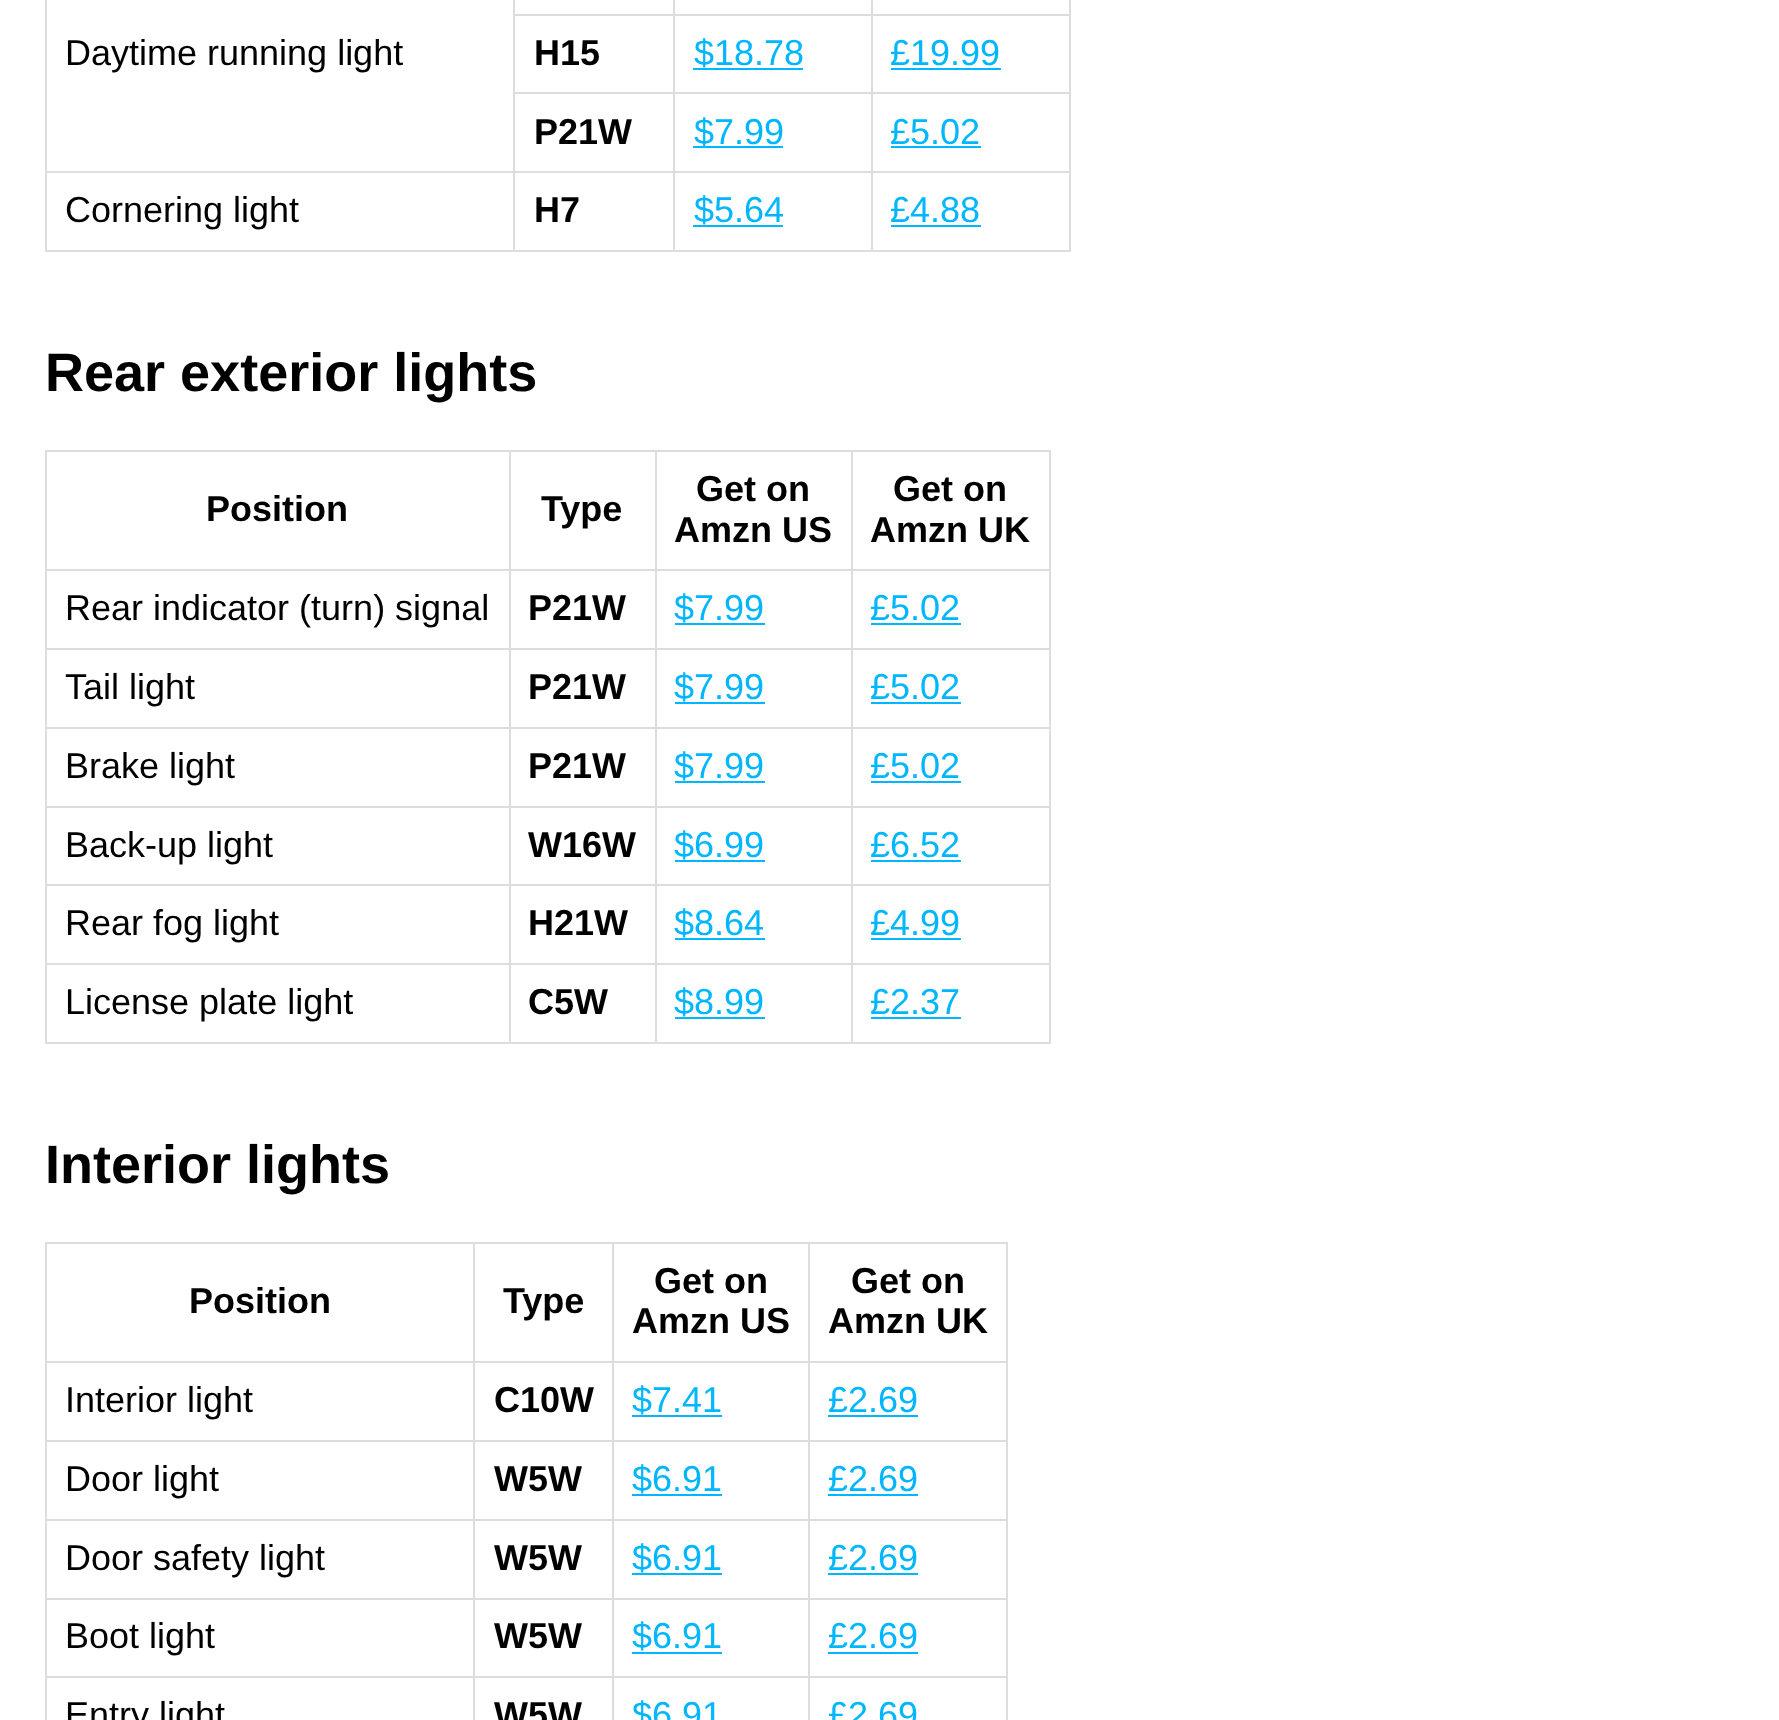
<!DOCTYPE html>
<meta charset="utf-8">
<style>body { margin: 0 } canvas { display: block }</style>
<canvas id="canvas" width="1779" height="1720"></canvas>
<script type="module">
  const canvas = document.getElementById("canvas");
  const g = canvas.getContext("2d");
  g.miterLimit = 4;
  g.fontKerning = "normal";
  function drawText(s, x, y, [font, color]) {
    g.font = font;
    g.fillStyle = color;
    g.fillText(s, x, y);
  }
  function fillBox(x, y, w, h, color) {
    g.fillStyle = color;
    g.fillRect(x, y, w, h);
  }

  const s1 = ["36px Liberation Sans", "#000000"];
  const s2 = ["bold 36px Liberation Sans", "#000000"];
  const s3 = ["36px Liberation Sans", "#00B7FF"];
  const s4 = ["bold 54px Liberation Sans", "#000000"];

  fillBox(0, 0, 1779, 1720, "#FFFFFF");
  fillBox(871, 14, 200, 2, "#DDDDDD");
  fillBox(871, 92, 200, 2, "#DDDDDD");
  fillBox(871, 171, 200, 2, "#DDDDDD");
  fillBox(1069, 171, 2, 81, "#DDDDDD");
  fillBox(871, 250, 200, 2, "#DDDDDD");
  fillBox(871, 171, 2, 81, "#DDDDDD");
  fillBox(673, 171, 200, 2, "#DDDDDD");
  fillBox(871, 92, 2, 81, "#DDDDDD");
  fillBox(673, 92, 200, 2, "#DDDDDD");
  fillBox(871, 14, 2, 81, "#DDDDDD");
  fillBox(673, 14, 200, 2, "#DDDDDD");
  fillBox(673, 250, 200, 2, "#DDDDDD");
  fillBox(673, 171, 2, 81, "#DDDDDD");
  fillBox(513, 171, 162, 2, "#DDDDDD");
  fillBox(673, 92, 2, 81, "#DDDDDD");
  fillBox(513, 92, 162, 2, "#DDDDDD");
  fillBox(673, 14, 2, 81, "#DDDDDD");
  fillBox(513, 14, 162, 2, "#DDDDDD");
  fillBox(673, 0, 2, 16, "#DDDDDD");
  fillBox(871, 0, 2, 16, "#DDDDDD");
  drawText("Daytime running light", 65, 65, s1);
  fillBox(513, 250, 162, 2, "#DDDDDD");
  fillBox(513, 171, 2, 81, "#DDDDDD");
  fillBox(45, 171, 470, 2, "#DDDDDD");
  fillBox(513, 92, 2, 81, "#DDDDDD");
  fillBox(513, 0, 2, 95, "#DDDDDD");
  drawText("H15", 534, 65, s2);
  drawText("$18.78", 694, 65, s3);
  fillBox(693, 68, 110, 2, "#00B7FF");
  fillBox(1069, 92, 2, 81, "#DDDDDD");
  fillBox(1069, 0, 2, 95, "#DDDDDD");
  drawText("£19.99", 890, 65, s3);
  fillBox(891, 68, 110, 2, "#00B7FF");
  drawText("P21W", 534, 144, s2);
  fillBox(693, 146, 90, 2, "#00B7FF");
  drawText("$7.99", 694, 144, s3);
  drawText("£5.02", 890, 144, s3);
  fillBox(891, 146, 90, 2, "#00B7FF");
  fillBox(45, 250, 470, 2, "#DDDDDD");
  fillBox(45, 0, 2, 252, "#DDDDDD");
  drawText("Cornering light", 65, 222, s1);
  drawText("H7", 534, 222, s2);
  drawText("$5.64", 694, 222, s3);
  fillBox(693, 225, 90, 2, "#00B7FF");
  drawText("£4.88", 890, 222, s3);
  fillBox(891, 225, 90, 2, "#00B7FF");
  drawText("Rear exterior lights", 45, 391, s4);
  fillBox(851, 450, 200, 2, "#DDDDDD");
  fillBox(851, 569, 200, 2, "#DDDDDD");
  fillBox(851, 648, 200, 2, "#DDDDDD");
  fillBox(851, 727, 200, 2, "#DDDDDD");
  fillBox(851, 806, 200, 2, "#DDDDDD");
  fillBox(851, 884, 200, 2, "#DDDDDD");
  fillBox(851, 963, 200, 2, "#DDDDDD");
  fillBox(1049, 963, 2, 81, "#DDDDDD");
  fillBox(851, 1042, 200, 2, "#DDDDDD");
  fillBox(851, 963, 2, 81, "#DDDDDD");
  fillBox(655, 963, 198, 2, "#DDDDDD");
  fillBox(851, 884, 2, 81, "#DDDDDD");
  fillBox(655, 884, 198, 2, "#DDDDDD");
  fillBox(851, 806, 2, 81, "#DDDDDD");
  fillBox(655, 806, 198, 2, "#DDDDDD");
  fillBox(851, 727, 2, 81, "#DDDDDD");
  fillBox(655, 727, 198, 2, "#DDDDDD");
  fillBox(851, 648, 2, 81, "#DDDDDD");
  fillBox(655, 648, 198, 2, "#DDDDDD");
  fillBox(851, 569, 2, 81, "#DDDDDD");
  fillBox(655, 569, 198, 2, "#DDDDDD");
  fillBox(851, 450, 2, 122, "#DDDDDD");
  fillBox(655, 450, 198, 2, "#DDDDDD");
  fillBox(655, 1042, 198, 2, "#DDDDDD");
  fillBox(655, 963, 2, 81, "#DDDDDD");
  fillBox(509, 963, 148, 2, "#DDDDDD");
  fillBox(655, 884, 2, 81, "#DDDDDD");
  fillBox(509, 884, 148, 2, "#DDDDDD");
  fillBox(655, 806, 2, 81, "#DDDDDD");
  fillBox(509, 806, 148, 2, "#DDDDDD");
  fillBox(655, 727, 2, 81, "#DDDDDD");
  fillBox(509, 727, 148, 2, "#DDDDDD");
  fillBox(655, 648, 2, 81, "#DDDDDD");
  fillBox(509, 648, 148, 2, "#DDDDDD");
  fillBox(655, 569, 2, 81, "#DDDDDD");
  fillBox(509, 569, 148, 2, "#DDDDDD");
  fillBox(655, 450, 2, 122, "#DDDDDD");
  fillBox(509, 450, 148, 2, "#DDDDDD");
  fillBox(509, 1042, 148, 2, "#DDDDDD");
  fillBox(509, 963, 2, 81, "#DDDDDD");
  fillBox(45, 963, 466, 2, "#DDDDDD");
  fillBox(509, 884, 2, 81, "#DDDDDD");
  fillBox(45, 884, 466, 2, "#DDDDDD");
  fillBox(509, 806, 2, 81, "#DDDDDD");
  fillBox(45, 806, 466, 2, "#DDDDDD");
  fillBox(509, 727, 2, 81, "#DDDDDD");
  fillBox(45, 727, 466, 2, "#DDDDDD");
  fillBox(509, 648, 2, 81, "#DDDDDD");
  fillBox(45, 648, 466, 2, "#DDDDDD");
  fillBox(509, 569, 2, 81, "#DDDDDD");
  fillBox(45, 569, 466, 2, "#DDDDDD");
  fillBox(509, 450, 2, 122, "#DDDDDD");
  fillBox(45, 450, 466, 2, "#DDDDDD");
  fillBox(45, 1042, 466, 2, "#DDDDDD");
  fillBox(45, 963, 2, 81, "#DDDDDD");
  fillBox(45, 884, 2, 81, "#DDDDDD");
  fillBox(45, 806, 2, 81, "#DDDDDD");
  fillBox(45, 727, 2, 81, "#DDDDDD");
  fillBox(45, 648, 2, 81, "#DDDDDD");
  fillBox(45, 569, 2, 81, "#DDDDDD");
  fillBox(45, 450, 2, 122, "#DDDDDD");
  drawText("Position", 206, 521, s2);
  drawText("Type", 541, 521, s2);
  drawText("Get on", 696, 501, s2);
  drawText("Amzn US", 674, 542, s2);
  fillBox(1049, 884, 2, 81, "#DDDDDD");
  fillBox(1049, 806, 2, 81, "#DDDDDD");
  fillBox(1049, 727, 2, 81, "#DDDDDD");
  fillBox(1049, 648, 2, 81, "#DDDDDD");
  fillBox(1049, 569, 2, 81, "#DDDDDD");
  fillBox(1049, 450, 2, 122, "#DDDDDD");
  drawText("Get on", 893, 501, s2);
  drawText("Amzn UK", 870, 542, s2);
  drawText("Rear indicator (turn) signal", 65, 620, s1);
  drawText("P21W", 528, 620, s2);
  drawText("$7.99", 674, 620, s3);
  fillBox(675, 623, 90, 2, "#00B7FF");
  drawText("£5.02", 870, 620, s3);
  fillBox(871, 623, 90, 2, "#00B7FF");
  drawText("Tail light", 65, 699, s1);
  drawText("P21W", 528, 699, s2);
  drawText("$7.99", 674, 699, s3);
  fillBox(675, 702, 90, 2, "#00B7FF");
  drawText("£5.02", 870, 699, s3);
  fillBox(871, 702, 90, 2, "#00B7FF");
  drawText("Brake light", 65, 778, s1);
  drawText("P21W", 528, 778, s2);
  drawText("$7.99", 674, 778, s3);
  fillBox(675, 781, 90, 2, "#00B7FF");
  drawText("£5.02", 870, 778, s3);
  fillBox(871, 781, 90, 2, "#00B7FF");
  drawText("Back-up light", 65, 857, s1);
  drawText("W16W", 528, 857, s2);
  drawText("$6.99", 674, 857, s3);
  fillBox(675, 860, 90, 2, "#00B7FF");
  drawText("£6.52", 870, 857, s3);
  fillBox(871, 860, 90, 2, "#00B7FF");
  drawText("Rear fog light", 65, 935, s1);
  drawText("H21W", 528, 935, s2);
  drawText("$8.64", 674, 935, s3);
  fillBox(675, 938, 90, 2, "#00B7FF");
  drawText("£4.99", 870, 935, s3);
  fillBox(871, 938, 90, 2, "#00B7FF");
  drawText("License plate light", 65, 1014, s1);
  drawText("C5W", 528, 1014, s2);
  drawText("$8.99", 674, 1014, s3);
  fillBox(675, 1017, 90, 2, "#00B7FF");
  drawText("£2.37", 870, 1014, s3);
  fillBox(871, 1017, 90, 2, "#00B7FF");
  drawText("Interior lights", 45, 1183, s4);
  fillBox(808, 1242, 200, 2, "#DDDDDD");
  fillBox(808, 1361, 200, 2, "#DDDDDD");
  fillBox(808, 1440, 200, 2, "#DDDDDD");
  fillBox(808, 1519, 200, 2, "#DDDDDD");
  fillBox(808, 1598, 200, 2, "#DDDDDD");
  fillBox(808, 1676, 200, 2, "#DDDDDD");
  fillBox(808, 1676, 2, 44, "#DDDDDD");
  fillBox(612, 1676, 198, 2, "#DDDDDD");
  fillBox(808, 1598, 2, 81, "#DDDDDD");
  fillBox(612, 1598, 198, 2, "#DDDDDD");
  fillBox(808, 1519, 2, 81, "#DDDDDD");
  fillBox(612, 1519, 198, 2, "#DDDDDD");
  fillBox(808, 1440, 2, 81, "#DDDDDD");
  fillBox(612, 1440, 198, 2, "#DDDDDD");
  fillBox(808, 1361, 2, 81, "#DDDDDD");
  fillBox(612, 1361, 198, 2, "#DDDDDD");
  fillBox(808, 1242, 2, 122, "#DDDDDD");
  fillBox(612, 1242, 198, 2, "#DDDDDD");
  fillBox(612, 1676, 2, 44, "#DDDDDD");
  fillBox(473, 1676, 141, 2, "#DDDDDD");
  fillBox(612, 1598, 2, 81, "#DDDDDD");
  fillBox(473, 1598, 141, 2, "#DDDDDD");
  fillBox(612, 1519, 2, 81, "#DDDDDD");
  fillBox(473, 1519, 141, 2, "#DDDDDD");
  fillBox(612, 1440, 2, 81, "#DDDDDD");
  fillBox(473, 1440, 141, 2, "#DDDDDD");
  fillBox(612, 1361, 2, 81, "#DDDDDD");
  fillBox(473, 1361, 141, 2, "#DDDDDD");
  fillBox(612, 1242, 2, 122, "#DDDDDD");
  fillBox(473, 1242, 141, 2, "#DDDDDD");
  fillBox(473, 1676, 2, 44, "#DDDDDD");
  fillBox(45, 1676, 430, 2, "#DDDDDD");
  fillBox(473, 1598, 2, 81, "#DDDDDD");
  fillBox(45, 1598, 430, 2, "#DDDDDD");
  fillBox(473, 1519, 2, 81, "#DDDDDD");
  fillBox(45, 1519, 430, 2, "#DDDDDD");
  fillBox(473, 1440, 2, 81, "#DDDDDD");
  fillBox(45, 1440, 430, 2, "#DDDDDD");
  fillBox(473, 1361, 2, 81, "#DDDDDD");
  fillBox(45, 1361, 430, 2, "#DDDDDD");
  fillBox(473, 1242, 2, 122, "#DDDDDD");
  fillBox(45, 1242, 430, 2, "#DDDDDD");
  fillBox(45, 1676, 2, 44, "#DDDDDD");
  fillBox(45, 1598, 2, 81, "#DDDDDD");
  fillBox(45, 1519, 2, 81, "#DDDDDD");
  fillBox(45, 1440, 2, 81, "#DDDDDD");
  fillBox(45, 1361, 2, 81, "#DDDDDD");
  fillBox(45, 1242, 2, 122, "#DDDDDD");
  drawText("Position", 189, 1313, s2);
  drawText("Type", 503, 1313, s2);
  drawText("Get on", 654, 1293, s2);
  drawText("Amzn US", 632, 1333, s2);
  fillBox(1006, 1676, 2, 44, "#DDDDDD");
  fillBox(1006, 1598, 2, 81, "#DDDDDD");
  fillBox(1006, 1519, 2, 81, "#DDDDDD");
  fillBox(1006, 1440, 2, 81, "#DDDDDD");
  fillBox(1006, 1361, 2, 81, "#DDDDDD");
  fillBox(1006, 1242, 2, 122, "#DDDDDD");
  drawText("Get on", 851, 1293, s2);
  drawText("Amzn UK", 828, 1333, s2);
  drawText("Interior light", 65, 1412, s1);
  drawText("C10W", 494, 1412, s2);
  drawText("$7.41", 632, 1412, s3);
  fillBox(632, 1415, 90, 2, "#00B7FF");
  drawText("£2.69", 828, 1412, s3);
  fillBox(828, 1415, 90, 2, "#00B7FF");
  drawText("Door light", 65, 1491, s1);
  drawText("W5W", 494, 1491, s2);
  drawText("$6.91", 632, 1491, s3);
  fillBox(632, 1494, 90, 2, "#00B7FF");
  drawText("£2.69", 828, 1491, s3);
  fillBox(828, 1494, 90, 2, "#00B7FF");
  drawText("Door safety light", 65, 1570, s1);
  drawText("W5W", 494, 1570, s2);
  drawText("$6.91", 632, 1570, s3);
  fillBox(632, 1573, 90, 2, "#00B7FF");
  drawText("£2.69", 828, 1570, s3);
  fillBox(828, 1573, 90, 2, "#00B7FF");
  drawText("Boot light", 65, 1648, s1);
  drawText("W5W", 494, 1648, s2);
  drawText("$6.91", 632, 1648, s3);
  fillBox(632, 1652, 90, 2, "#00B7FF");
  drawText("£2.69", 828, 1648, s3);
  fillBox(828, 1652, 90, 2, "#00B7FF");
  drawText("Entry light", 65, 1727, s1);
  drawText("W5W", 494, 1727, s2);
  drawText("$6.91", 632, 1727, s3);
  drawText("£2.69", 828, 1727, s3);
</script>
